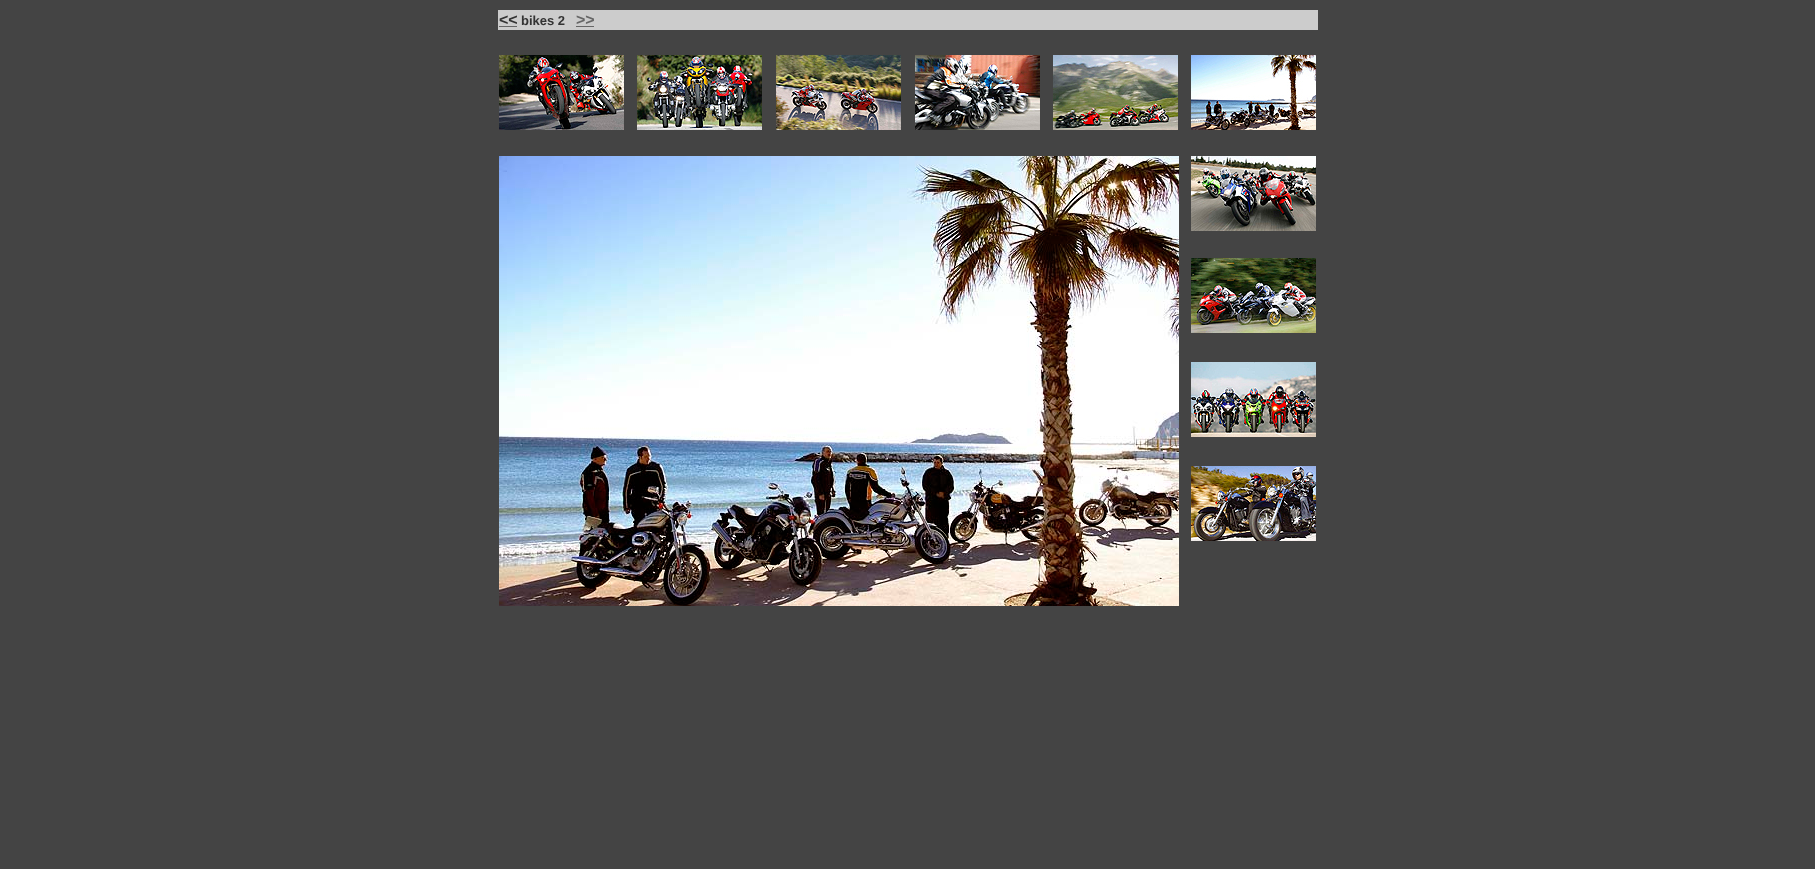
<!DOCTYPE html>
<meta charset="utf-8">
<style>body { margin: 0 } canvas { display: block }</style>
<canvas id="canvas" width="1815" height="869"></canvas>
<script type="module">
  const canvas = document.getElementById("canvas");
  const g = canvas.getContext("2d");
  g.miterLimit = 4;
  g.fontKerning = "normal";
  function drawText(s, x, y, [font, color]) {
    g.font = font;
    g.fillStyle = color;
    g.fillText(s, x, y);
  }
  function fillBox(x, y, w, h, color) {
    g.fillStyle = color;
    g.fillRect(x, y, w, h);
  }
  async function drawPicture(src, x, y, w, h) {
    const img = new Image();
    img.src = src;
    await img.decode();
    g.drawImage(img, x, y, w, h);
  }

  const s1 = ["bold 16px Liberation Sans", "#333333"];
  const s2 = ["bold 13px Liberation Sans", "#333333"];
  const s3 = ["bold 16px Liberation Sans", "#666666"];

  fillBox(0, 0, 1815, 869, "#444444");
  fillBox(498, 10, 820, 20, "#CCCCCC");
  drawText("<<", 499, 25, s1);
  fillBox(499, 26, 18, 1, "#666666");
  drawText("bikes 2", 521, 25, s2);
  drawText(">>", 576, 25, s3);
  fillBox(576, 26, 18, 1, "#666666");
  await drawPicture("pic1.png", 499, 55, 125, 75);
  await drawPicture("pic2.png", 637, 55, 125, 75);
  await drawPicture("pic3.png", 776, 55, 125, 75);
  await drawPicture("pic4.png", 915, 55, 125, 75);
  await drawPicture("pic5.png", 1053, 55, 125, 75);
  await drawPicture("pic6.png", 1191, 55, 125, 75);
  await drawPicture("pic7.png", 499, 156, 680, 450);
  await drawPicture("pic8.png", 1191, 156, 125, 75);
  await drawPicture("pic9.png", 1191, 258, 125, 75);
  await drawPicture("pic10.png", 1191, 362, 125, 75);
  await drawPicture("pic11.png", 1191, 466, 125, 75);
</script>
